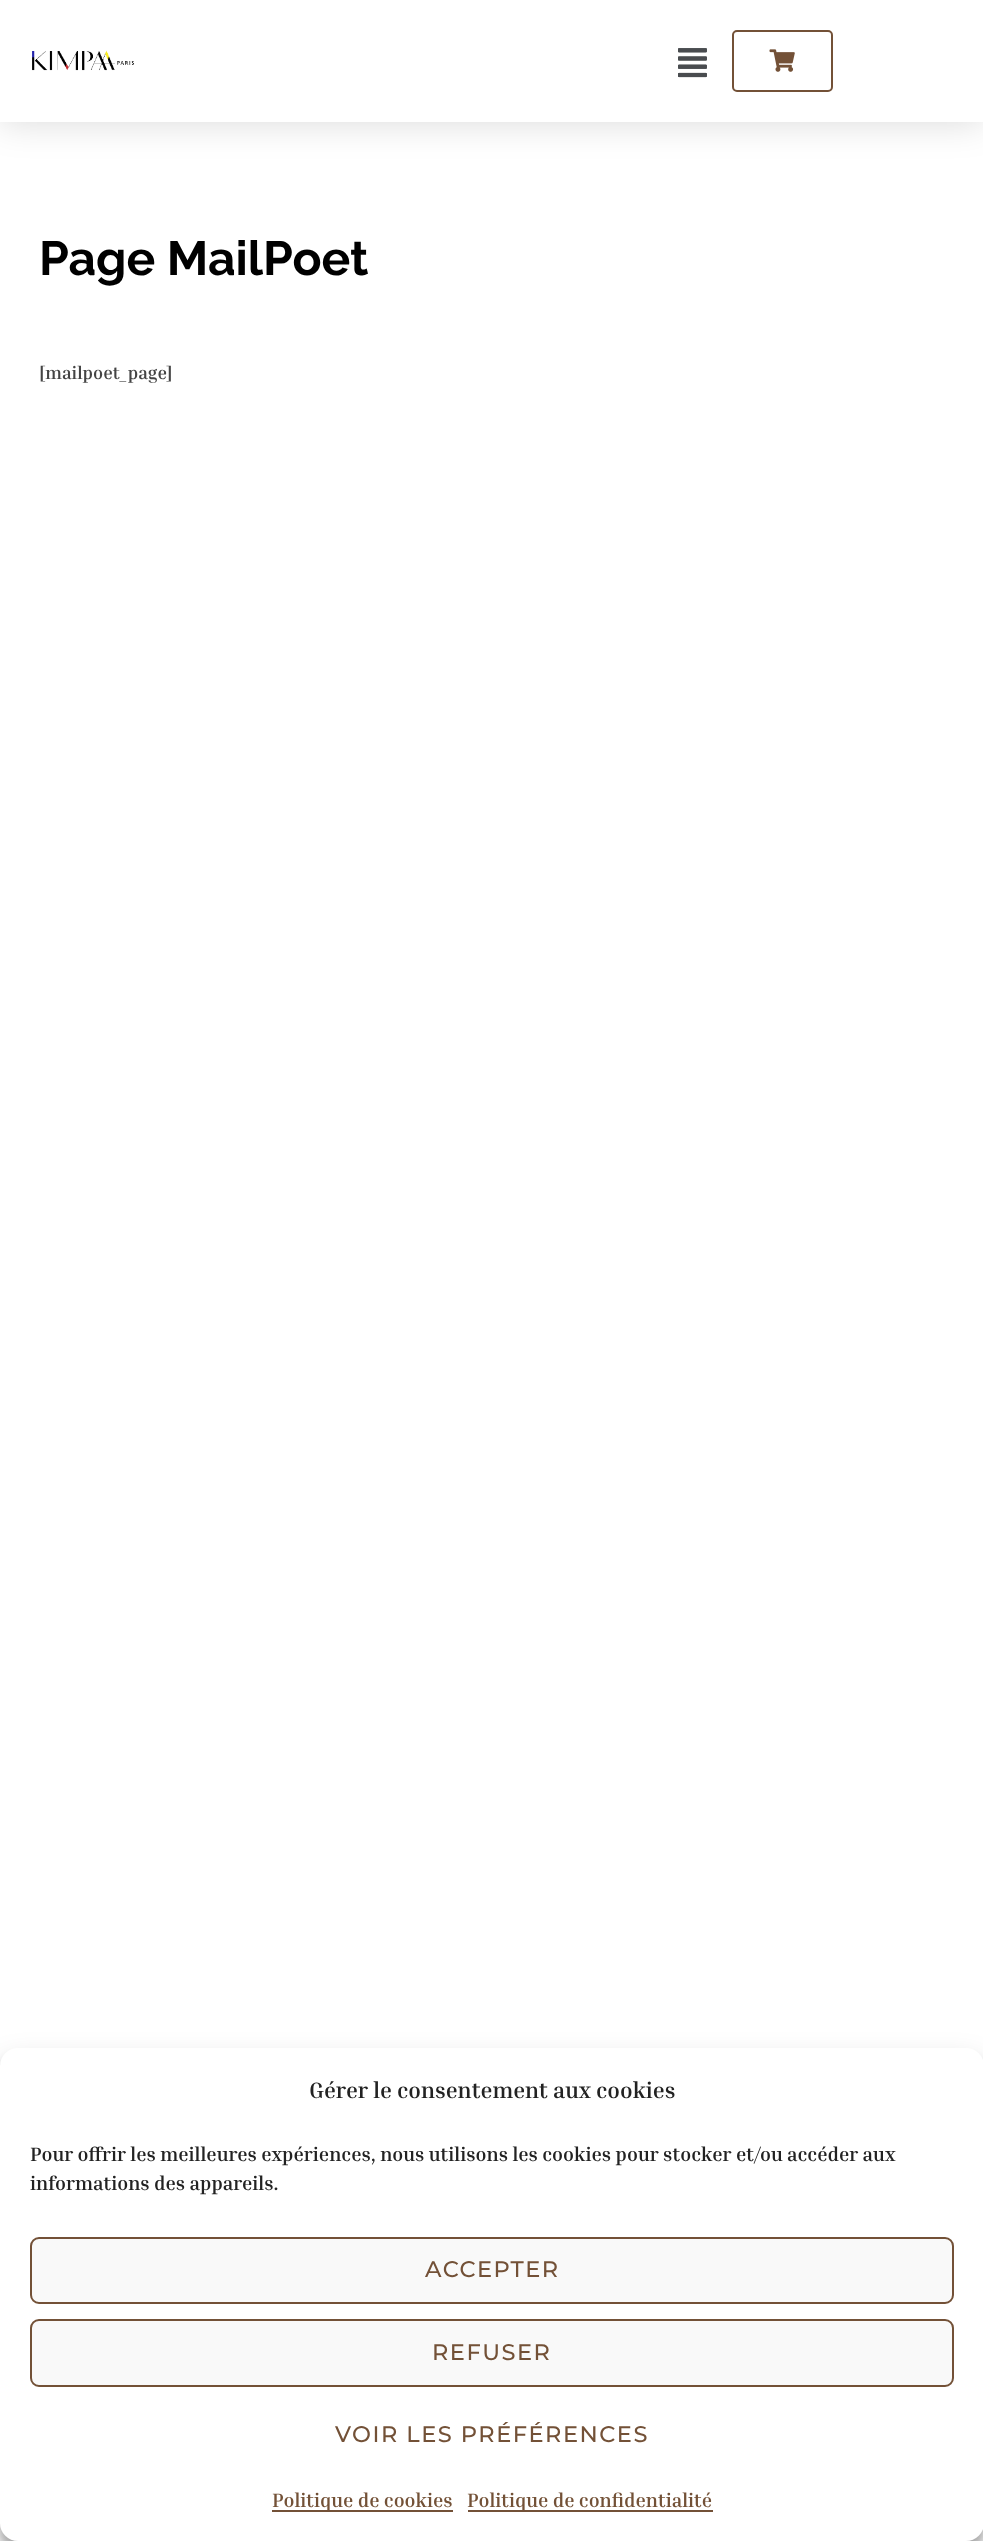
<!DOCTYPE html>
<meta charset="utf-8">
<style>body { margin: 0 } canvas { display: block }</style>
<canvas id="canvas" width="983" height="2541"></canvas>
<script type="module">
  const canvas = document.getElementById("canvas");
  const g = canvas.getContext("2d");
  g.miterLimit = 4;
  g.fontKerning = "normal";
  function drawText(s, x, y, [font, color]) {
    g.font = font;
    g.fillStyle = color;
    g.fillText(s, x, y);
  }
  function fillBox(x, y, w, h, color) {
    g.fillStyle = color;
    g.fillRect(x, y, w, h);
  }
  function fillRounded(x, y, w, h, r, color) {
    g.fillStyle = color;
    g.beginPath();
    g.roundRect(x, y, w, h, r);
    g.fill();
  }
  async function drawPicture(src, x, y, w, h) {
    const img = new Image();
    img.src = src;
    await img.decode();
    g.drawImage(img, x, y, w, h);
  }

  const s1 = ["bold 48px Raleway", "#000000"];
  const s2 = ["bold 18px Inria Serif", "#444444"];
  const s3 = ["bold 22.5px Inria Serif", "#222222"];
  const s4 = ["bold 19.5px Inria Serif", "#222222"];
  const s5 = ["500 22.5px Montserrat", "#735137"];
  const s6 = ["bold 19.5px Inria Serif", "#735137"];

  fillBox(0, 0, 983, 2541, "#FFFFFF");
  g.fillStyle = "rgba(0, 0, 0, 0.15)";
  g.filter = "blur(18px)";
  g.beginPath();
  g.rect(0, 0, 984, 122);
  g.fill();
  g.filter = "none";
  fillBox(0, 0, 983, 122, "#FFFFFF");
  await drawPicture("pic1.png", 32, 50, 103, 21);
  await drawPicture("pic2.png", 678, 48, 29, 30);
  g.beginPath();
  g.roundRect(733, 31, 99, 60, 4);
  g.strokeStyle = "#735137";
  g.lineWidth = 2;
  g.stroke();
  await drawPicture("pic3.png", 769, 49, 26, 23);
  await drawPicture("pic4.png", 678, 48, 29, 30);
  drawText("Page MailPoet", 39, 275, s1);
  drawText("[mailpoet_page]", 39, 379, s2);
  g.fillStyle = "rgba(0, 0, 0, 0.23)";
  g.filter = "blur(4.5px)";
  g.beginPath();
  g.roundRect(0, 2057, 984, 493, 18);
  g.fill();
  g.filter = "none";
  g.fillStyle = "rgba(0, 0, 0, 0.19)";
  g.filter = "blur(15px)";
  g.beginPath();
  g.roundRect(0, 2063, 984, 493, 18);
  g.fill();
  g.filter = "none";
  fillRounded(0, 2048, 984, 493, 18, "#FFFFFF");
  drawText("Gérer le consentement aux cookies", 309, 2098, s3);
  drawText("Pour offrir les meilleures expériences, nous utilisons les cookies pour stocker et/ou accéder aux", 30, 2161, s4);
  drawText("informations des appareils.", 30, 2190, s4);
  g.fillStyle = "#F9F9F9";
  g.beginPath();
  g.roundRect(31, 2238, 922, 65, 8);
  g.fill();
  g.stroke();
  g.letterSpacing = "1.5px";
  drawText("ACCEPTER", 425, 2277, s5);
  g.fillStyle = "#F9F9F9";
  g.beginPath();
  g.roundRect(31, 2320, 922, 66, 8);
  g.fill();
  g.stroke();
  drawText("REFUSER", 432, 2360, s5);
  drawText("VOIR LES PRÉFÉRENCES", 335, 2442, s5);
  fillBox(272, 2510, 181, 2, "#735137");
  g.letterSpacing = "0px";
  drawText("Politique de cookies", 272, 2507, s6);
  fillBox(468, 2510, 245, 2, "#735137");
  drawText("Politique de confidentialité", 467, 2507, s6);
</script>
